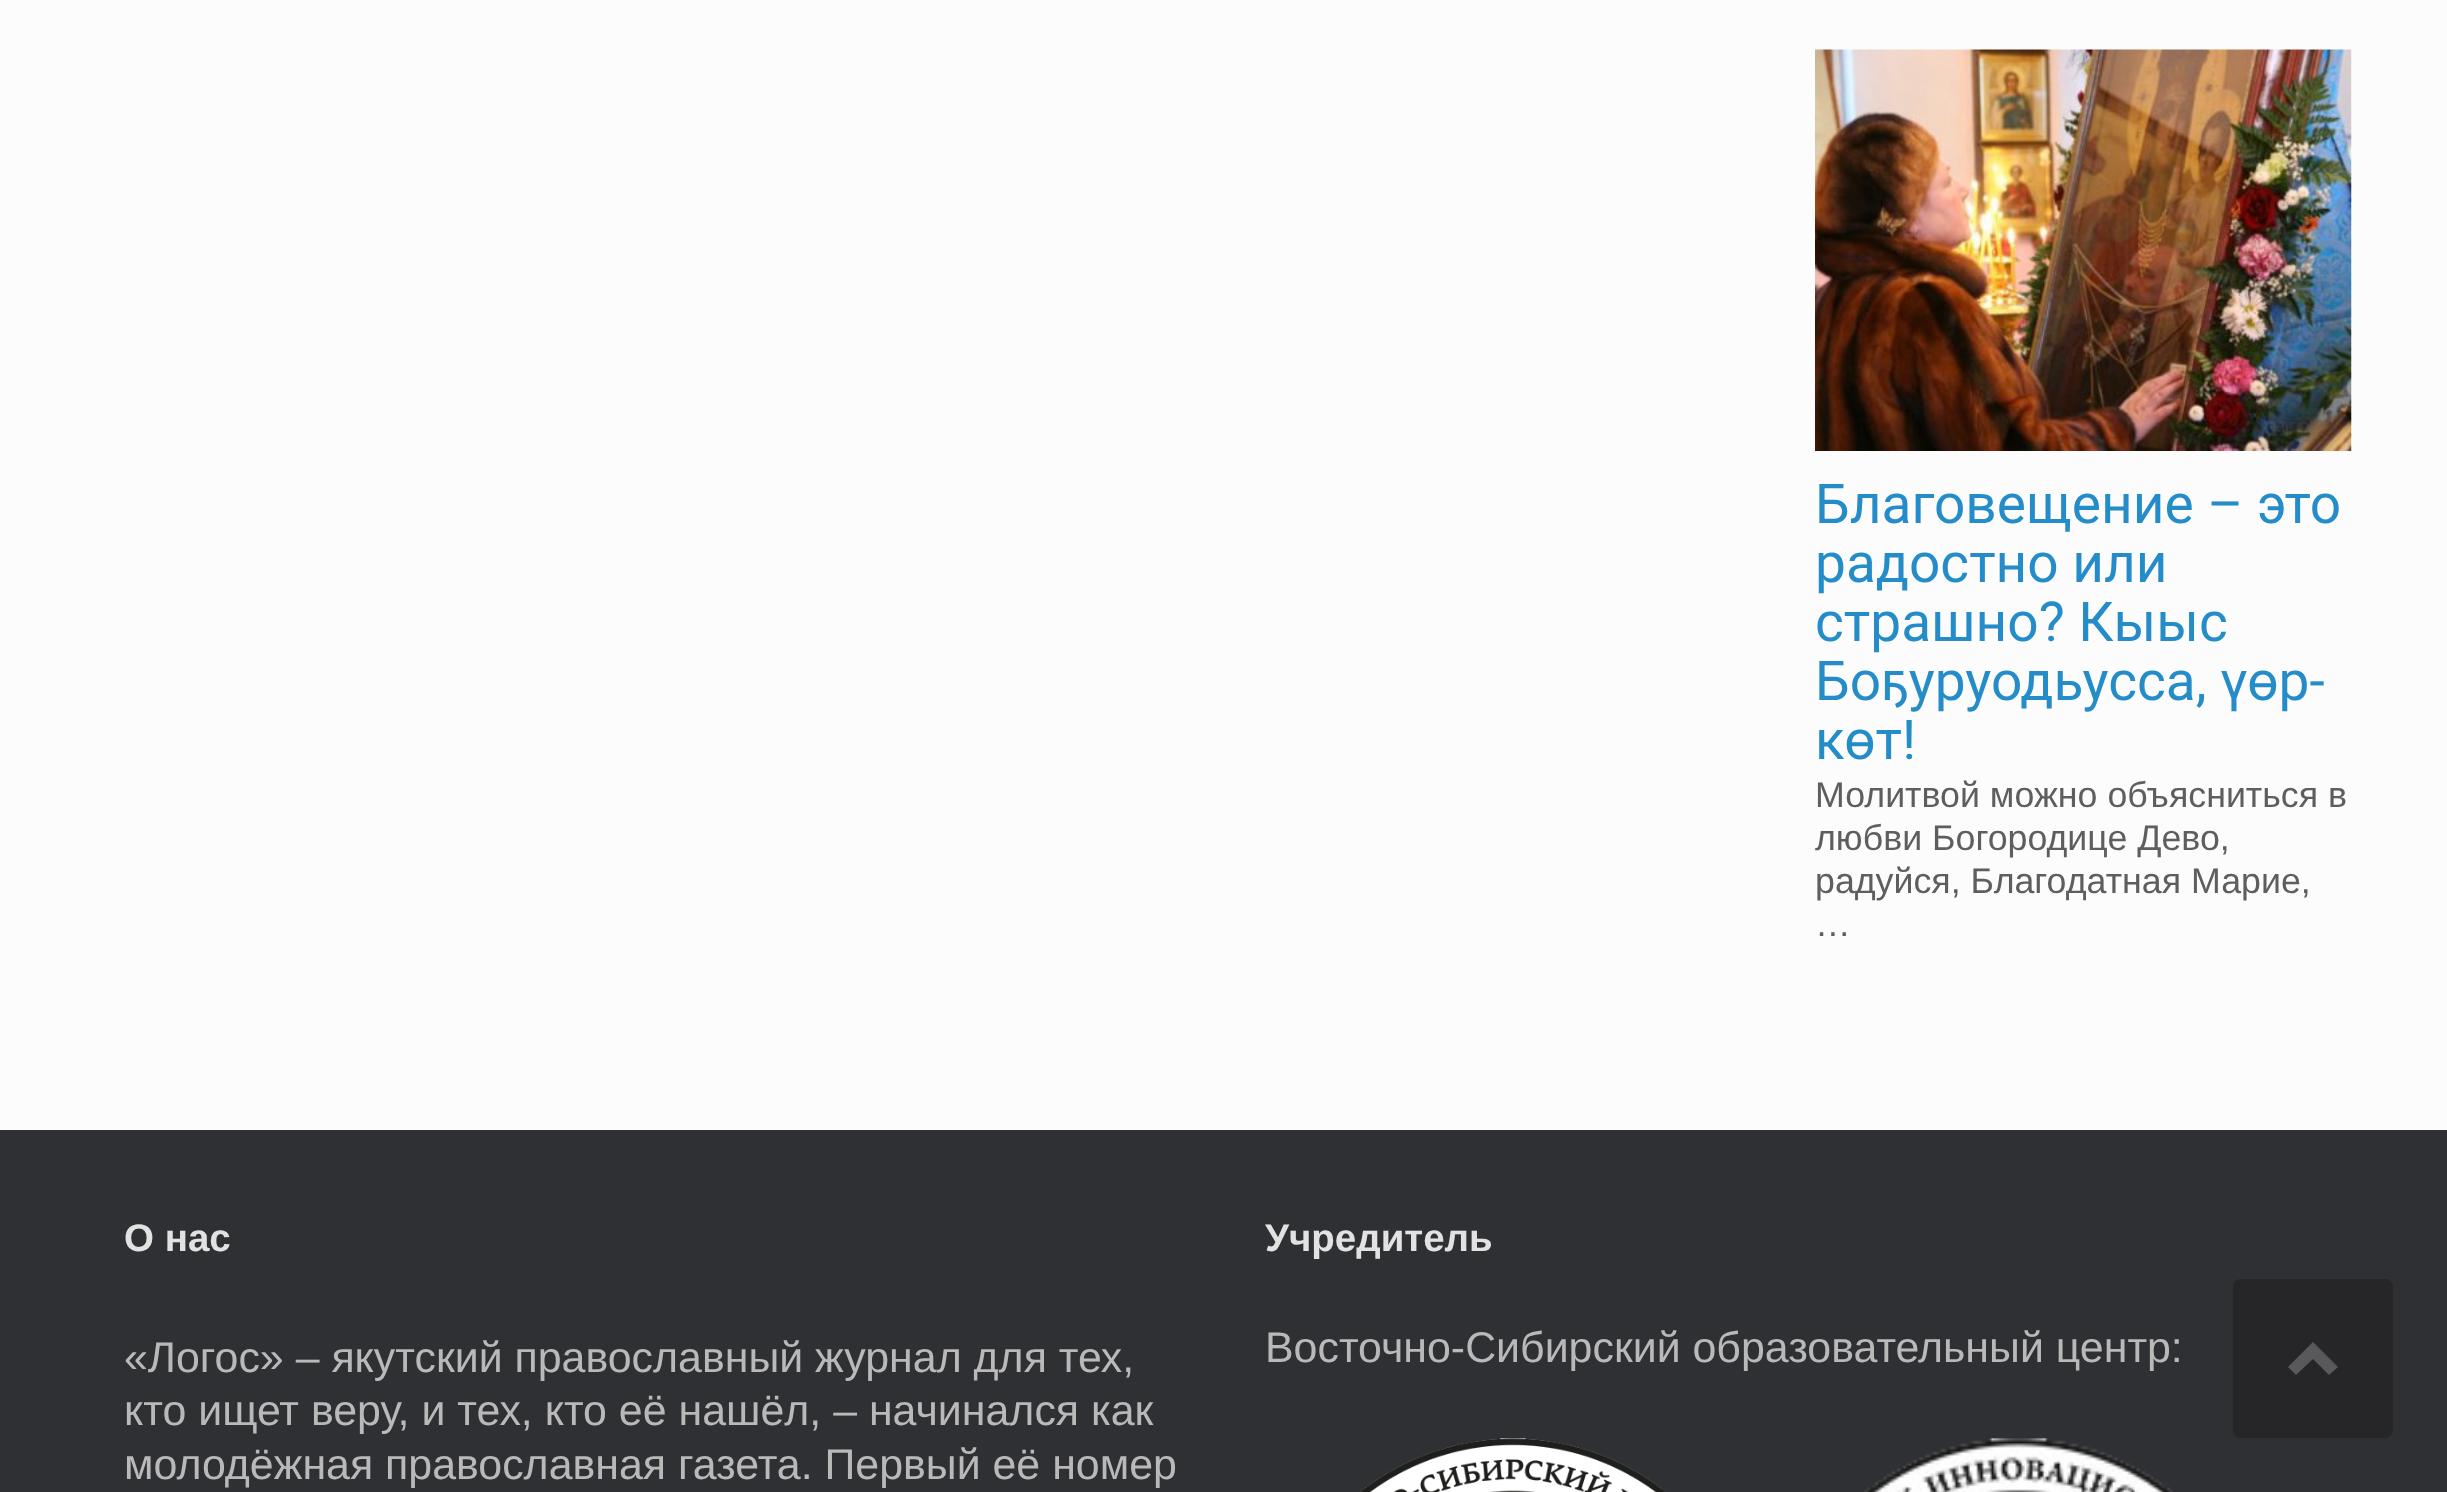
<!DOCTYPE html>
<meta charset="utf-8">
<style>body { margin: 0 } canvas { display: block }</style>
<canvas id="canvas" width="2447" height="1492"></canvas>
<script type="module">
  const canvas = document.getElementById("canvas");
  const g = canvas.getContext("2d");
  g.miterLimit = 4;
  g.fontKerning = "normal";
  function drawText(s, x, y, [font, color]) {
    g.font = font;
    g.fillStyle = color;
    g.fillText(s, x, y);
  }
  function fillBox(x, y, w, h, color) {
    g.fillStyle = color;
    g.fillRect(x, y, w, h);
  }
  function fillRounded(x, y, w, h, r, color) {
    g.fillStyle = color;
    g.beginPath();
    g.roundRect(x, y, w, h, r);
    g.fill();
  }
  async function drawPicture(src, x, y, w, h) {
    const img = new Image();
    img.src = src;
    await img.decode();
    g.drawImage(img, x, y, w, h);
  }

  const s1 = ["55px Roboto", "#248CC8"];
  const s2 = ["35.75px Liberation Sans", "#5E5E5E"];
  const s3 = ["bold 38.5px Liberation Sans", "#E2E2E2"];
  const s4 = ["42.9px Liberation Sans", "#B9B9B9"];

  fillBox(0, 0, 2447, 1492, "#2F3033");
  fillBox(0, 0, 2447, 1130, "#FCFCFC");
  await drawPicture("pic1.png", 1815, 49, 537, 402);
  drawText("Благовещение – это", 1815, 523, s1);
  drawText("радостно или", 1815, 582, s1);
  drawText("страшно? Кыыс", 1815, 641, s1);
  drawText("Боҕуруодьусса, үөр-", 1815, 700, s1);
  drawText("көт!", 1815, 759, s1);
  drawText("Молитвой можно объясниться в", 1815, 807, s2);
  drawText("любви Богородице Дево,", 1815, 850, s2);
  drawText("радуйся, Благодатная Марие,", 1815, 893, s2);
  drawText("…", 1815, 936, s2);
  drawText("О нас", 124, 1251, s3);
  drawText("«Логос» – якутский православный журнал для тех,", 124, 1372, s4);
  drawText("кто ищет веру, и тех, кто её нашёл, – начинался как", 124, 1425, s4);
  drawText("молодёжная православная газета. Первый её номер", 124, 1479, s4);
  drawText("Учредитель", 1265, 1251, s3);
  drawText("Восточно-Сибирский образовательный центр:", 1265, 1362, s4);
  await drawPicture("pic2.png", 1360, 1438, 307, 54);
  await drawPicture("pic3.png", 1864, 1438, 310, 54);
  fillRounded(2233, 1279, 160, 159, 8, "#262629");
  g.fillStyle = "#59595C";
  g.beginPath();
  g.moveTo(2338, 1367);
  g.lineTo(2313, 1342);
  g.lineTo(2288, 1367);
  g.lineTo(2296, 1375);
  g.lineTo(2313, 1359);
  g.lineTo(2329, 1375);
  g.closePath();
  g.fill();
</script>
